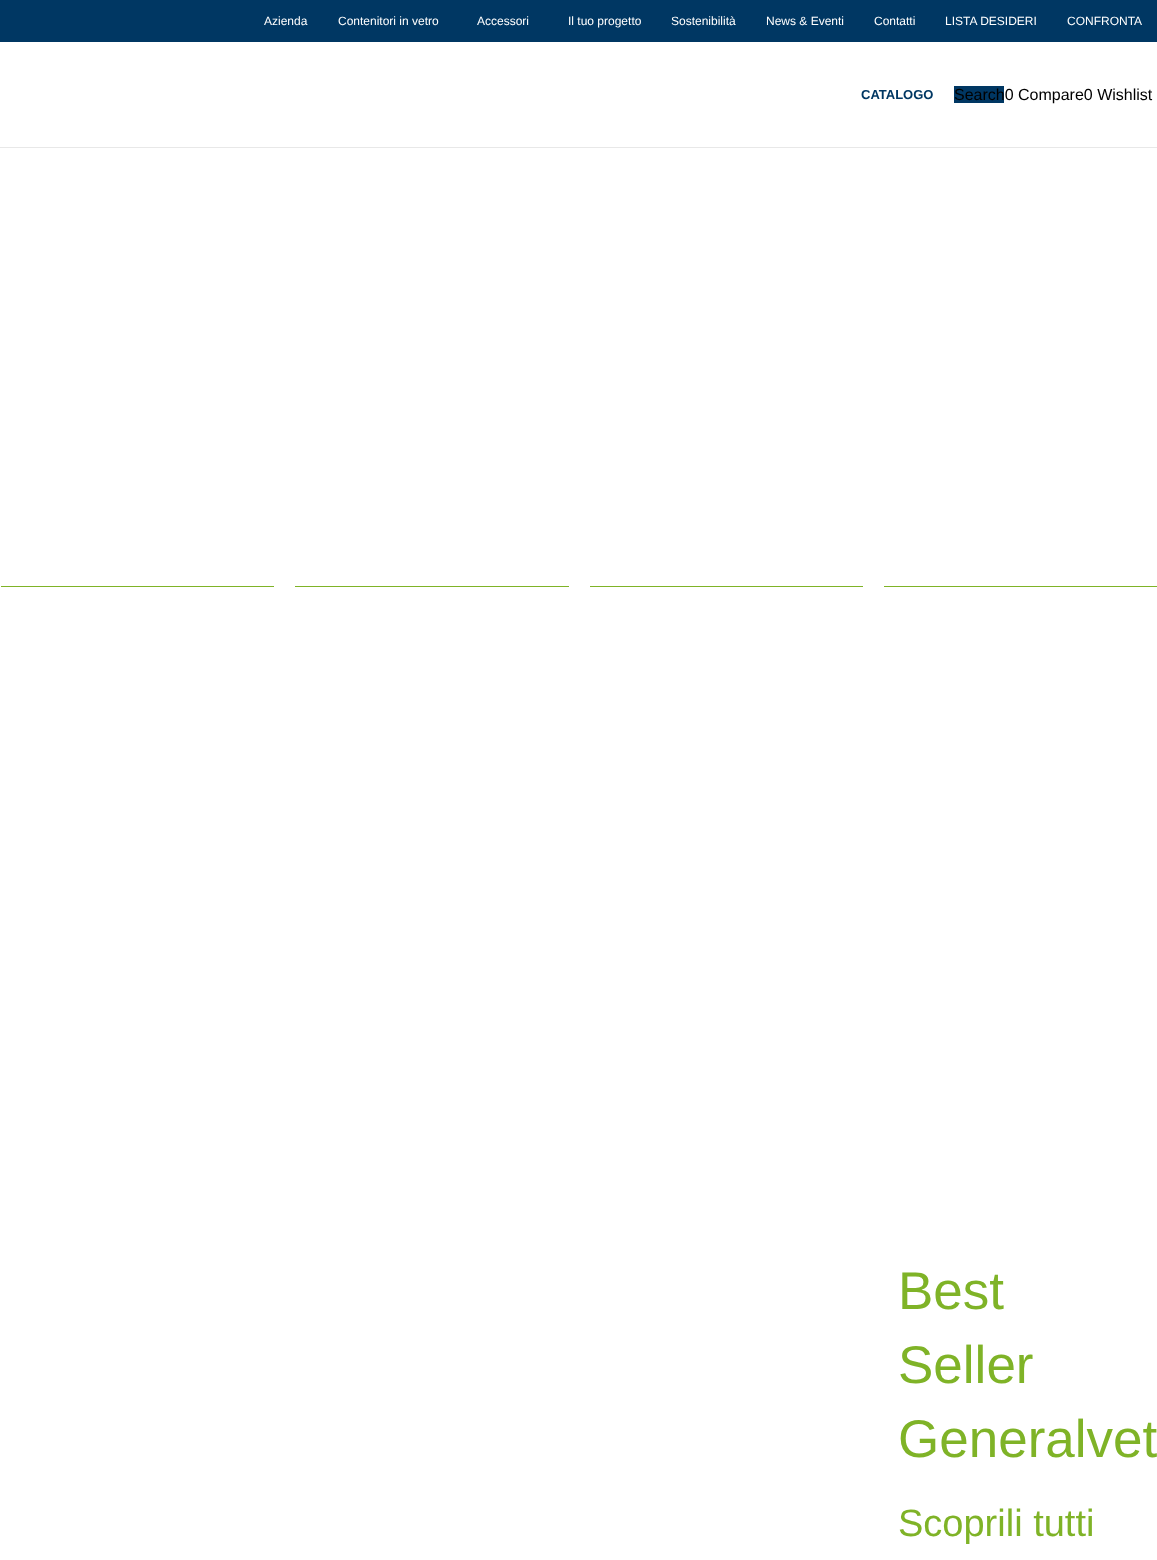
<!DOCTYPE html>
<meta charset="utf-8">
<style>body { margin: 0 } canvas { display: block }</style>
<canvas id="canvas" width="1157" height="1560"></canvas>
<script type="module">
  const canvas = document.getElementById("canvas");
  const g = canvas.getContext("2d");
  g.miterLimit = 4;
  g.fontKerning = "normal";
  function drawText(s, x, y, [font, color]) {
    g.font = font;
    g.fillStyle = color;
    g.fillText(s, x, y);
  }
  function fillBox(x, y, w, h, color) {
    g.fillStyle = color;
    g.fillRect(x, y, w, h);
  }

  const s1 = ["12px Liberation Sans", "#FFFFFF"];
  const s2 = ["bold 13px Liberation Sans", "#003763"];
  const s3 = ["16px Liberation Sans", "#000000"];
  const s4 = ["53px Liberation Sans", "#7FB327"];
  const s5 = ["38px Liberation Sans", "#7FB327"];

  fillBox(0, 0, 1157, 1560, "#FFFFFF");
  fillBox(0, 0, 1157, 42, "#003763");
  drawText("Azienda", 264, 25, s1);
  drawText("Contenitori in vetro", 338, 25, s1);
  drawText("Accessori", 477, 25, s1);
  drawText("Il tuo progetto", 568, 25, s1);
  drawText("Sostenibilità", 671, 25, s1);
  drawText("News & Eventi", 766, 25, s1);
  drawText("Contatti", 874, 25, s1);
  drawText("LISTA DESIDERI", 945, 25, s1);
  drawText("CONFRONTA", 1067, 25, s1);
  fillBox(0, 147, 1157, 1, "#E8E8E8");
  drawText("CATALOGO", 861, 99, s2);
  fillBox(954, 86, 50, 17, "#003763");
  drawText("Search0 Compare0 Wishlist", 954, 100, s3);
  fillBox(1, 586, 273, 1, "#7FB327");
  fillBox(295, 586, 274, 1, "#7FB327");
  fillBox(590, 586, 273, 1, "#7FB327");
  fillBox(884, 586, 273, 1, "#7FB327");
  drawText("Best", 898, 1309, s4);
  drawText("Seller", 898, 1383, s4);
  drawText("Generalvet", 898, 1457, s4);
  drawText("Scoprili tutti", 898, 1536, s5);
</script>
